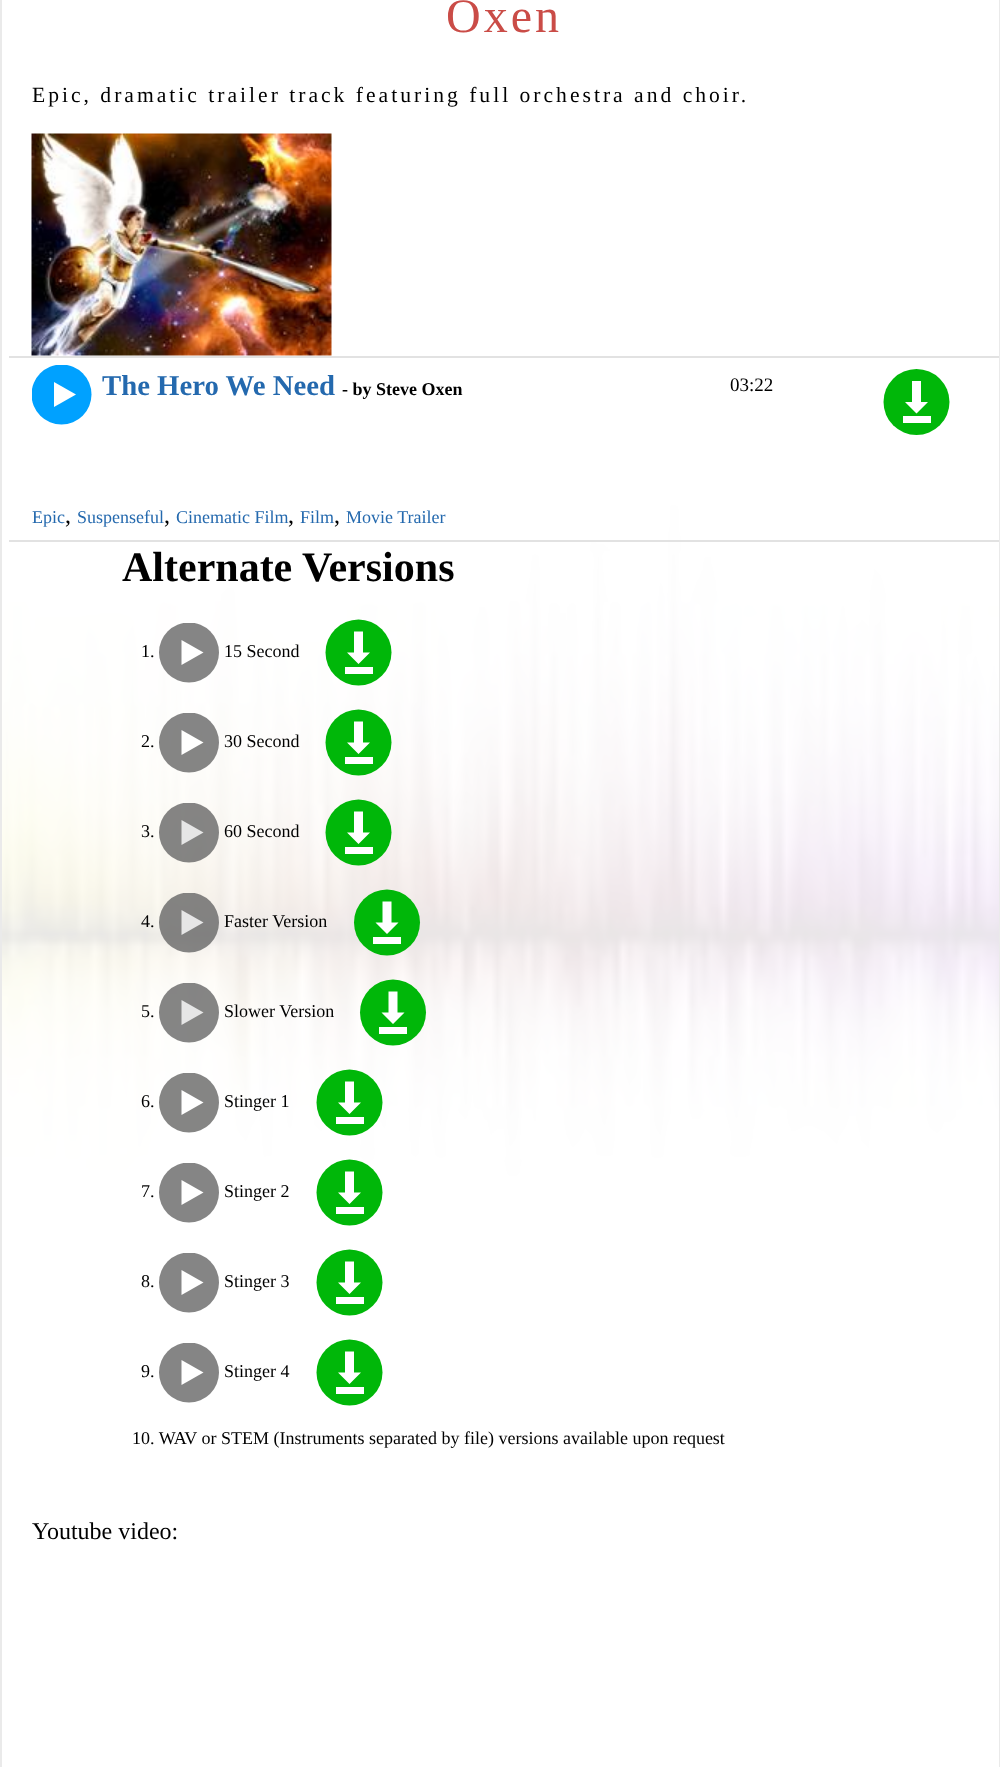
<!DOCTYPE html>
<meta charset="utf-8">
<style>body { margin: 0 } canvas { display: block }</style>
<canvas id="canvas" width="1000" height="1767"></canvas>
<script type="module">
  const canvas = document.getElementById("canvas");
  const g = canvas.getContext("2d");
  g.miterLimit = 4;
  g.fontKerning = "normal";
  function drawText(s, x, y, [font, color]) {
    g.font = font;
    g.fillStyle = color;
    g.fillText(s, x, y);
  }
  function fillBox(x, y, w, h, color) {
    g.fillStyle = color;
    g.fillRect(x, y, w, h);
  }
  async function drawPicture(src, x, y, w, h) {
    const img = new Image();
    img.src = src;
    await img.decode();
    g.drawImage(img, x, y, w, h);
  }

  const s1 = ["48px Liberation Serif", "#CA4C47"];
  const s2 = ["21.6px Liberation Serif", "#000000"];
  const s3 = ["bold 28.75px Liberation Serif", "#2469AE"];
  const s4 = ["bold 18px Liberation Serif", "#000000"];
  const s5 = ["18px Liberation Serif", "#2469AE"];
  const s6 = ["24px Liberation Serif", "#000000"];
  const s7 = ["19px Liberation Serif", "#000000"];
  const s8 = ["bold 42px Liberation Serif", "#000000"];
  const s9 = ["18px Liberation Serif", "#000000"];

  fillBox(0, 0, 1000, 1767, "#FFFFFF");
  await drawPicture("pic1.png", 2, 0, 997, 1767);
  fillBox(999, 0, 1, 1767, "#EAEAEA");
  fillBox(0, 0, 2, 1767, "#EAEAEA");
  g.letterSpacing = "3px";
  drawText("Oxen", 446, 32, s1);
  drawText("Epic, dramatic trailer track featuring full orchestra and choir.", 32, 102, s2);
  await drawPicture("pic2.png", 31, 133, 301, 223);
  fillBox(9, 356, 990, 2, "#E2E2E2");
  fillBox(9, 540, 990, 2, "#E2E2E2");
  g.save();
  g.beginPath();
  g.rect(32, 365, 60, 60);
  g.clip();
  g.fillStyle = "#00A1FF";
  g.beginPath();
  g.arc(61.5, 394.5, 30, 0, Math.PI * 2);
  g.fill();
  g.restore();
  g.fillStyle = "#FFFFFF";
  g.beginPath();
  g.moveTo(54, 382);
  g.lineTo(76, 394.5);
  g.lineTo(54, 407);
  g.closePath();
  g.fill();
  g.letterSpacing = "0px";
  drawText("The Hero We Need", 102, 395, s3);
  drawText("- by Steve Oxen", 342, 395, s4);
  drawText("Epic", 32, 523, s5);
  drawText(",", 65, 523, s6);
  drawText("Suspenseful", 77, 523, s5);
  drawText(",", 164, 523, s6);
  drawText("Cinematic Film", 176, 523, s5);
  drawText(",", 288, 523, s6);
  drawText("Film", 300, 523, s5);
  drawText(",", 334, 523, s6);
  drawText("Movie Trailer", 346, 523, s5);
  drawText("03:22", 730, 391, s7);
  g.fillStyle = "#00B709";
  g.beginPath();
  g.arc(916.5, 402, 33, 0, Math.PI * 2);
  g.fill();
  g.fillStyle = "#FFFFFF";
  g.beginPath();
  g.moveTo(912, 381);
  g.lineTo(912, 402);
  g.lineTo(905, 402);
  g.lineTo(916.5, 413.5);
  g.lineTo(928, 402);
  g.lineTo(921, 402);
  g.lineTo(921, 381);
  g.closePath();
  g.fill();
  fillBox(903, 416, 28, 7, "#FFFFFF");
  drawText("Alternate Versions", 122, 581, s8);
  g.save();
  g.beginPath();
  g.rect(159, 623, 60, 60);
  g.clip();
  g.fillStyle = "rgba(102, 102, 102, 0.8)";
  g.beginPath();
  g.arc(189, 652.5, 30, 0, Math.PI * 2);
  g.fill();
  g.restore();
  g.fillStyle = "#00B709";
  g.beginPath();
  g.arc(358.5, 652.5, 33, 0, Math.PI * 2);
  g.fill();
  drawText("1.", 141, 657, s9);
  g.fillStyle = "#FFFFFF";
  g.beginPath();
  g.moveTo(181.5, 640);
  g.lineTo(203.5, 652.5);
  g.lineTo(181.5, 665);
  g.closePath();
  g.fill();
  drawText("15 Second", 224, 657, s9);
  g.fillStyle = "#FFFFFF";
  g.beginPath();
  g.moveTo(354, 631.5);
  g.lineTo(354, 652.5);
  g.lineTo(347, 652.5);
  g.lineTo(358.5, 664);
  g.lineTo(370, 652.5);
  g.lineTo(363, 652.5);
  g.lineTo(363, 631.5);
  g.closePath();
  g.fill();
  fillBox(345, 667, 28, 7, "#FFFFFF");
  g.save();
  g.beginPath();
  g.rect(159, 713, 60, 60);
  g.clip();
  g.fillStyle = "rgba(102, 102, 102, 0.8)";
  g.beginPath();
  g.arc(189, 742.5, 30, 0, Math.PI * 2);
  g.fill();
  g.restore();
  g.fillStyle = "#00B709";
  g.beginPath();
  g.arc(358.5, 742.5, 33, 0, Math.PI * 2);
  g.fill();
  drawText("2.", 141, 747, s9);
  g.fillStyle = "#FFFFFE";
  g.beginPath();
  g.moveTo(181.5, 730);
  g.lineTo(203.5, 742.5);
  g.lineTo(181.5, 755);
  g.closePath();
  g.fill();
  drawText("30 Second", 224, 747, s9);
  g.fillStyle = "#FFFFFF";
  g.beginPath();
  g.moveTo(354, 721.5);
  g.lineTo(354, 742.5);
  g.lineTo(347, 742.5);
  g.lineTo(358.5, 754);
  g.lineTo(370, 742.5);
  g.lineTo(363, 742.5);
  g.lineTo(363, 721.5);
  g.closePath();
  g.fill();
  fillBox(345, 757, 28, 7, "#FFFFFF");
  g.save();
  g.beginPath();
  g.rect(159, 803, 60, 60);
  g.clip();
  g.fillStyle = "rgba(102, 102, 102, 0.8)";
  g.beginPath();
  g.arc(189, 832.5, 30, 0, Math.PI * 2);
  g.fill();
  g.restore();
  g.fillStyle = "#00B709";
  g.beginPath();
  g.arc(358.5, 832.5, 33, 0, Math.PI * 2);
  g.fill();
  drawText("3.", 141, 837, s9);
  g.fillStyle = "#E6E6E6";
  g.beginPath();
  g.moveTo(181.5, 820);
  g.lineTo(203.5, 832.5);
  g.lineTo(181.5, 845);
  g.closePath();
  g.fill();
  drawText("60 Second", 224, 837, s9);
  g.fillStyle = "#FFFFFF";
  g.beginPath();
  g.moveTo(354, 811.5);
  g.lineTo(354, 832.5);
  g.lineTo(347, 832.5);
  g.lineTo(358.5, 844);
  g.lineTo(370, 832.5);
  g.lineTo(363, 832.5);
  g.lineTo(363, 811.5);
  g.closePath();
  g.fill();
  fillBox(345, 847, 28, 7, "#FFFFFF");
  g.save();
  g.beginPath();
  g.rect(159, 893, 60, 60);
  g.clip();
  g.fillStyle = "rgba(102, 102, 102, 0.8)";
  g.beginPath();
  g.arc(189, 922.5, 30, 0, Math.PI * 2);
  g.fill();
  g.restore();
  g.fillStyle = "#00B709";
  g.beginPath();
  g.arc(387, 922.5, 33, 0, Math.PI * 2);
  g.fill();
  drawText("4.", 141, 927, s9);
  g.fillStyle = "#E6E6E6";
  g.beginPath();
  g.moveTo(181.5, 910);
  g.lineTo(203.5, 922.5);
  g.lineTo(181.5, 935);
  g.closePath();
  g.fill();
  drawText("Faster Version", 224, 927, s9);
  g.fillStyle = "#FFFFFF";
  g.beginPath();
  g.moveTo(382.5, 901.5);
  g.lineTo(382.5, 922.5);
  g.lineTo(375.5, 922.5);
  g.lineTo(387, 934);
  g.lineTo(398.5, 922.5);
  g.lineTo(391.5, 922.5);
  g.lineTo(391.5, 901.5);
  g.closePath();
  g.fill();
  fillBox(373, 937, 28, 7, "#FFFFFF");
  g.save();
  g.beginPath();
  g.rect(159, 983, 60, 60);
  g.clip();
  g.fillStyle = "rgba(102, 102, 102, 0.8)";
  g.beginPath();
  g.arc(189, 1012.5, 30, 0, Math.PI * 2);
  g.fill();
  g.restore();
  g.fillStyle = "#00B709";
  g.beginPath();
  g.arc(393, 1012.5, 33, 0, Math.PI * 2);
  g.fill();
  drawText("5.", 141, 1017, s9);
  g.fillStyle = "#E6E6E6";
  g.beginPath();
  g.moveTo(181.5, 1000);
  g.lineTo(203.5, 1012.5);
  g.lineTo(181.5, 1025);
  g.closePath();
  g.fill();
  drawText("Slower Version", 224, 1017, s9);
  g.fillStyle = "#FFFFFF";
  g.beginPath();
  g.moveTo(388.5, 991.5);
  g.lineTo(388.5, 1012.5);
  g.lineTo(381.5, 1012.5);
  g.lineTo(393, 1024);
  g.lineTo(404.5, 1012.5);
  g.lineTo(397.5, 1012.5);
  g.lineTo(397.5, 991.5);
  g.closePath();
  g.fill();
  fillBox(379, 1027, 28, 7, "#FFFFFF");
  g.save();
  g.beginPath();
  g.rect(159, 1073, 60, 60);
  g.clip();
  g.fillStyle = "#858584";
  g.beginPath();
  g.arc(189, 1102.5, 30, 0, Math.PI * 2);
  g.fill();
  g.restore();
  g.fillStyle = "#00B709";
  g.beginPath();
  g.arc(349.5, 1102.5, 33, 0, Math.PI * 2);
  g.fill();
  drawText("6.", 141, 1107, s9);
  g.fillStyle = "#FFFFFF";
  g.beginPath();
  g.moveTo(181.5, 1090);
  g.lineTo(203.5, 1102.5);
  g.lineTo(181.5, 1115);
  g.closePath();
  g.fill();
  drawText("Stinger 1", 224, 1107, s9);
  g.fillStyle = "#FFFFFF";
  g.beginPath();
  g.moveTo(345, 1081.5);
  g.lineTo(345, 1102.5);
  g.lineTo(338, 1102.5);
  g.lineTo(349.5, 1114);
  g.lineTo(361, 1102.5);
  g.lineTo(354, 1102.5);
  g.lineTo(354, 1081.5);
  g.closePath();
  g.fill();
  fillBox(336, 1117, 28, 7, "#FFFFFF");
  g.save();
  g.beginPath();
  g.rect(159, 1163, 60, 60);
  g.clip();
  g.fillStyle = "#858585";
  g.beginPath();
  g.arc(189, 1192.5, 30, 0, Math.PI * 2);
  g.fill();
  g.restore();
  g.fillStyle = "#00B709";
  g.beginPath();
  g.arc(349.5, 1192.5, 33, 0, Math.PI * 2);
  g.fill();
  drawText("7.", 141, 1197, s9);
  g.fillStyle = "#FFFFFF";
  g.beginPath();
  g.moveTo(181.5, 1180);
  g.lineTo(203.5, 1192.5);
  g.lineTo(181.5, 1205);
  g.closePath();
  g.fill();
  drawText("Stinger 2", 224, 1197, s9);
  g.fillStyle = "#FFFFFF";
  g.beginPath();
  g.moveTo(345, 1171.5);
  g.lineTo(345, 1192.5);
  g.lineTo(338, 1192.5);
  g.lineTo(349.5, 1204);
  g.lineTo(361, 1192.5);
  g.lineTo(354, 1192.5);
  g.lineTo(354, 1171.5);
  g.closePath();
  g.fill();
  fillBox(336, 1207, 28, 7, "#FFFFFF");
  g.save();
  g.beginPath();
  g.rect(159, 1253, 60, 60);
  g.clip();
  g.fillStyle = "#858585";
  g.beginPath();
  g.arc(189, 1282.5, 30, 0, Math.PI * 2);
  g.fill();
  g.restore();
  g.fillStyle = "#00B709";
  g.beginPath();
  g.arc(349.5, 1282.5, 33, 0, Math.PI * 2);
  g.fill();
  drawText("8.", 141, 1287, s9);
  g.fillStyle = "#FFFFFF";
  g.beginPath();
  g.moveTo(181.5, 1270);
  g.lineTo(203.5, 1282.5);
  g.lineTo(181.5, 1295);
  g.closePath();
  g.fill();
  drawText("Stinger 3", 224, 1287, s9);
  g.fillStyle = "#FFFFFF";
  g.beginPath();
  g.moveTo(345, 1261.5);
  g.lineTo(345, 1282.5);
  g.lineTo(338, 1282.5);
  g.lineTo(349.5, 1294);
  g.lineTo(361, 1282.5);
  g.lineTo(354, 1282.5);
  g.lineTo(354, 1261.5);
  g.closePath();
  g.fill();
  fillBox(336, 1297, 28, 7, "#FFFFFF");
  g.save();
  g.beginPath();
  g.rect(159, 1343, 60, 60);
  g.clip();
  g.fillStyle = "#858585";
  g.beginPath();
  g.arc(189, 1372.5, 30, 0, Math.PI * 2);
  g.fill();
  g.restore();
  g.fillStyle = "#00B709";
  g.beginPath();
  g.arc(349.5, 1372.5, 33, 0, Math.PI * 2);
  g.fill();
  drawText("9.", 141, 1377, s9);
  g.fillStyle = "#FFFFFF";
  g.beginPath();
  g.moveTo(181.5, 1360);
  g.lineTo(203.5, 1372.5);
  g.lineTo(181.5, 1385);
  g.closePath();
  g.fill();
  drawText("Stinger 4", 224, 1377, s9);
  g.fillStyle = "#FFFFFF";
  g.beginPath();
  g.moveTo(345, 1351.5);
  g.lineTo(345, 1372.5);
  g.lineTo(338, 1372.5);
  g.lineTo(349.5, 1384);
  g.lineTo(361, 1372.5);
  g.lineTo(354, 1372.5);
  g.lineTo(354, 1351.5);
  g.closePath();
  g.fill();
  fillBox(336, 1387, 28, 7, "#FFFFFF");
  drawText("10. WAV or STEM (Instruments separated by file) versions available upon request", 132, 1444, s9);
  drawText("Youtube video:", 32, 1539, s6);
</script>
